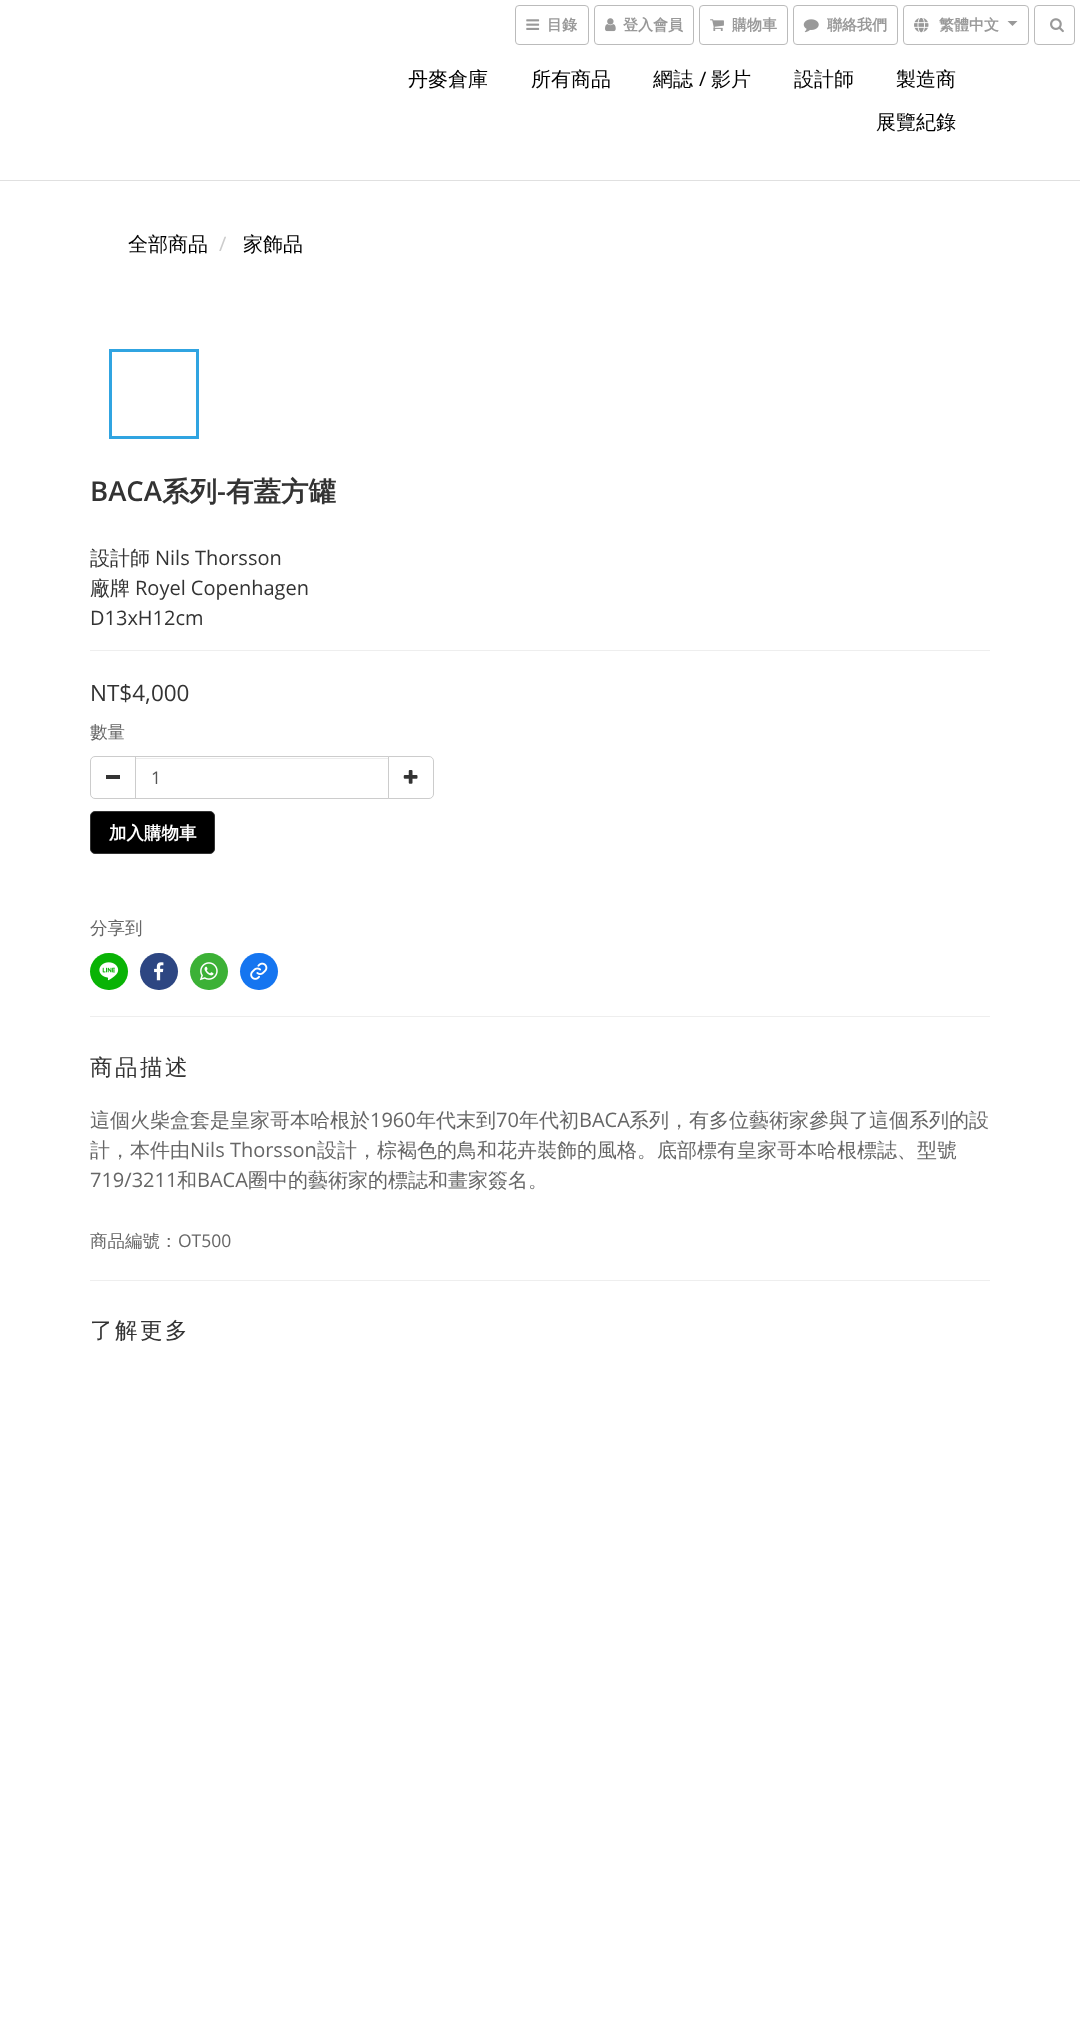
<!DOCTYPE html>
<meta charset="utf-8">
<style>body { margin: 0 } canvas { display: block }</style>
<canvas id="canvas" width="1080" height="2019"></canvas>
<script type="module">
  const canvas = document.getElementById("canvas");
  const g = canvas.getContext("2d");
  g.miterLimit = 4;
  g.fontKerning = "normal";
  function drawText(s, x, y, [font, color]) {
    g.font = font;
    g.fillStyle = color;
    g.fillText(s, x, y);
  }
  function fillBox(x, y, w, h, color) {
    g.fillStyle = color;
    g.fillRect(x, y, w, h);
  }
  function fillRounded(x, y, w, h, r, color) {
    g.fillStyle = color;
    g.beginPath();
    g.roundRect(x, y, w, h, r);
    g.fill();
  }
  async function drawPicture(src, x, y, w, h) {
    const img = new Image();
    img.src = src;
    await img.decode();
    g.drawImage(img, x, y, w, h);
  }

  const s1 = ["bold 15px WenQuanYi Zen Hei", "#999999"];
  const s2 = ["500 20px WenQuanYi Zen Hei", "#000000"];
  const s3 = ["20px Open Sans", "#000000"];
  const s4 = ["20px Open Sans", "#CCCCCC"];
  const s5 = ["600 27.5px Open Sans", "#333333"];
  const s6 = ["bold 27.5px WenQuanYi Zen Hei", "#333333"];
  const s7 = ["500 20px WenQuanYi Zen Hei", "#333333"];
  const s8 = ["20px Open Sans", "#333333"];
  const s9 = ["22.5px Open Sans", "#333333"];
  const s10 = ["500 17.5px WenQuanYi Zen Hei", "#666666"];
  const s11 = ["17.5px Open Sans", "#555555"];
  const s12 = ["bold 17.5px WenQuanYi Zen Hei", "#FFFFFF"];
  const s13 = ["500 22.5px WenQuanYi Zen Hei", "#333333"];
  const s14 = ["500 20px WenQuanYi Zen Hei", "#666666"];
  const s15 = ["20px Open Sans", "#666666"];
  const s16 = ["17.5px Open Sans", "#666666"];

  fillBox(0, 0, 1080, 2019, "#FFFFFF");
  g.beginPath();
  g.roundRect(515.5, 5.5, 73, 39, 3.5);
  g.strokeStyle = "#BBBBBB";
  g.stroke();
  await drawPicture("pic1.png", 526, 19, 14, 11);
  drawText("目錄", 547, 30, s1);
  g.beginPath();
  g.roundRect(594.5, 5.5, 99, 39, 3.5);
  g.stroke();
  await drawPicture("pic2.png", 605, 18, 11, 14);
  drawText("登入會員", 623, 30, s1);
  g.beginPath();
  g.roundRect(699.5, 5.5, 88, 39, 3.5);
  g.stroke();
  await drawPicture("pic3.png", 710, 19, 14, 12);
  drawText("購物車", 732, 30, s1);
  g.beginPath();
  g.roundRect(793.5, 5.5, 104, 39, 3.5);
  g.stroke();
  await drawPicture("pic4.png", 803, 19, 16, 14);
  drawText("聯絡我們", 827, 30, s1);
  g.beginPath();
  g.roundRect(903.5, 5.5, 125, 39, 3.5);
  g.stroke();
  await drawPicture("pic5.png", 914, 18, 15, 15);
  drawText("繁體中文", 939, 30, s1);
  g.beginPath();
  g.moveTo(1007.5, 21);
  g.lineTo(1017.5, 21);
  g.lineTo(1012.5, 26);
  g.closePath();
  g.fill();
  g.beginPath();
  g.roundRect(1034.5, 5.5, 40, 39, 3.5);
  g.stroke();
  await drawPicture("pic6.png", 1050, 18, 14, 15);
  fillBox(0, 180, 1080, 1, "#E0E0E0");
  drawText("丹麥倉庫", 408, 86, s2);
  drawText("所有商品", 531, 86, s2);
  drawText("網誌", 653, 86, s2);
  drawText("/", 699, 86, s3);
  drawText("影片", 711, 86, s2);
  drawText("設計師", 794, 86, s2);
  drawText("製造商", 896, 86, s2);
  drawText("展覽紀錄", 876, 129, s2);
  drawText("全部商品", 128, 251, s2);
  drawText("/", 219, 251, s4);
  drawText("家飾品", 243, 251, s2);
  g.strokeStyle = "#30A4E1";
  g.lineWidth = 3;
  g.strokeRect(110.5, 350.5, 87, 87);
  drawText("BACA", 90, 501, s5);
  drawText("系列", 162, 501, s6);
  drawText("-", 217, 501, s5);
  drawText("有蓋方罐", 226, 501, s6);
  drawText("設計師", 90, 565, s7);
  drawText("Nils Thorsson", 155, 565, s8);
  drawText("廠牌", 90, 595, s7);
  drawText("Royel Copenhagen", 135, 595, s8);
  drawText("D13xH12cm", 90, 625, s8);
  fillBox(90, 650, 900, 1, "#EEEEEE");
  drawText("NT$4,000", 90, 701, s9);
  drawText("數量", 90, 738, s10);
  g.beginPath();
  g.roundRect(90.5, 756.5, 45, 42, [4.5, 0, 0, 4.5]);
  g.strokeStyle = "#CCCCCC";
  g.lineWidth = 1;
  g.stroke();
  fillBox(106, 775, 14, 4, "#333333");
  fillBox(136, 758, 252, 1, "#ECECEC");
  g.strokeRect(135.5, 756.5, 253, 42);
  drawText("1", 151, 784, s11);
  g.fillStyle = "#FFFFFF";
  g.beginPath();
  g.roundRect(388.5, 756.5, 45, 42, [0, 4.5, 4.5, 0]);
  g.fill();
  g.stroke();
  await drawPicture("pic7.png", 403, 770, 15, 14);
  g.fillStyle = "#000000";
  g.beginPath();
  g.roundRect(90.5, 811.5, 124, 42, 4.5);
  g.fill();
  g.strokeStyle = "#333333";
  g.stroke();
  drawText("加入購物車", 109, 839, s12);
  drawText("分享到", 90, 934, s10);
  fillRounded(90, 953, 38, 37, 18.5, "#09B305");
  await drawPicture("pic8.png", 99, 962, 20, 19);
  fillRounded(140, 953, 38, 37, 18.5, "#2D4682");
  await drawPicture("pic9.png", 154, 962, 10, 19);
  fillRounded(190, 953, 38, 37, 18.5, "#3CB136");
  await drawPicture("pic10.png", 199, 962, 19, 19);
  fillRounded(240, 953, 38, 37, 18.5, "#1575F0");
  await drawPicture("pic11.png", 250, 962, 18, 18);
  fillBox(90, 1016, 900, 1, "#EEEEEE");
  g.letterSpacing = "2.5px";
  drawText("商品描述", 90, 1075, s13);
  g.letterSpacing = "0px";
  drawText("這個火柴盒套是皇家哥本哈根於", 90, 1127, s14);
  drawText("1960", 370, 1127, s15);
  drawText("年代末到", 416, 1127, s14);
  drawText("70", 496, 1127, s15);
  drawText("年代初", 519, 1127, s14);
  drawText("BACA", 579, 1127, s15);
  drawText("系列，有多位藝術家參與了這個系列的設", 629, 1127, s14);
  drawText("計，本件由", 90, 1157, s14);
  drawText("Nils Thorsson", 190, 1157, s15);
  drawText("設計，棕褐色的鳥和花卉裝飾的風格。底部標有皇家哥本哈根標誌、型號", 317, 1157, s14);
  drawText("719/3211", 90, 1187, s15);
  drawText("和", 177, 1187, s14);
  drawText("BACA", 197, 1187, s15);
  drawText("圈中的藝術家的標誌和畫家簽名。", 248, 1187, s14);
  drawText("商品編號：", 90, 1247, s10);
  drawText("OT500", 178, 1247, s16);
  fillBox(90, 1280, 900, 1, "#EEEEEE");
  g.letterSpacing = "2.5px";
  drawText("了解更多", 90, 1338, s13);
</script>
